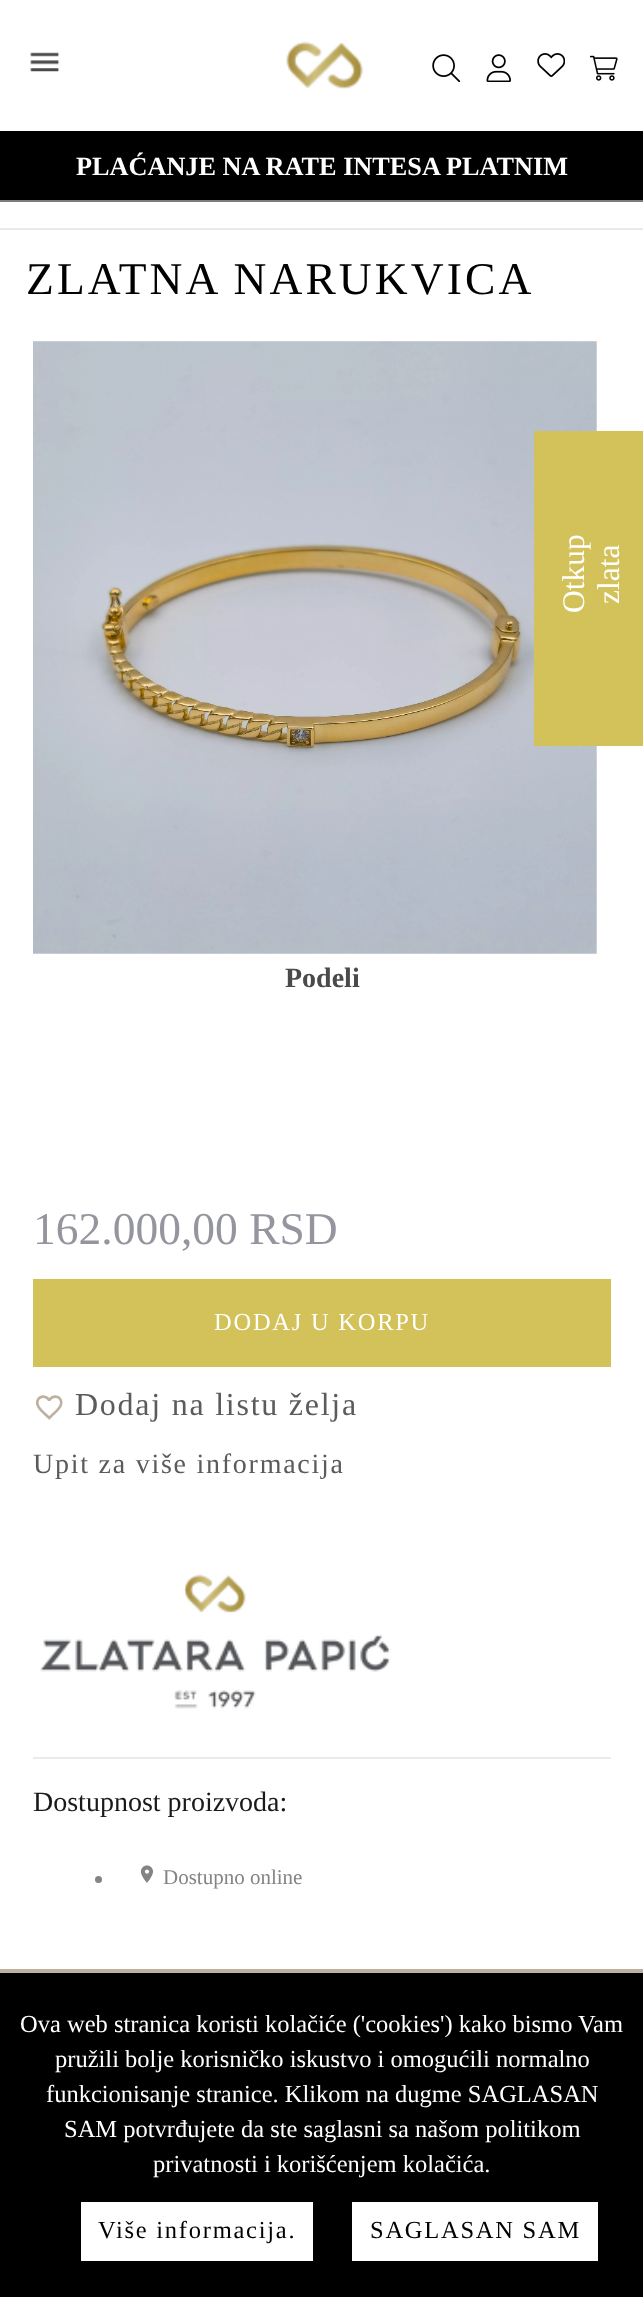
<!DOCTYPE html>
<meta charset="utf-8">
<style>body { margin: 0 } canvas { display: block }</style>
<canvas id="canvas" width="643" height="2297"></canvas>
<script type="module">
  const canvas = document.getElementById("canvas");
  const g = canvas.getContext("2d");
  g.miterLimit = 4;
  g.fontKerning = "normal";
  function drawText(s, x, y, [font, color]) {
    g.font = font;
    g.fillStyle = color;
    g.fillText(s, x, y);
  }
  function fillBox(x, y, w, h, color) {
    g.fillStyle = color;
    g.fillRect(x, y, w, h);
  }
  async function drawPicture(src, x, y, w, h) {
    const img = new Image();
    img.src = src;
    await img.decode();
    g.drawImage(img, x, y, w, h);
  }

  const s1 = ["bold 26.25px Liberation Serif", "#FFFFFF"];
  const s2 = ["45.5px Liberation Serif", "#000000"];
  const s3 = ["bold 28px Liberation Serif", "#4B4949"];
  const s4 = ["45.5px Liberation Serif", "#95959F"];
  const s5 = ["24.5px Liberation Serif", "#FFFFFF"];
  const s6 = ["32px Liberation Serif", "#5B5B5B"];
  const s7 = ["28px Liberation Serif", "#5B5B5B"];
  const s8 = ["28px Liberation Serif", "#1A1A1A"];
  const s9 = ["21px Liberation Serif", "#848484"];
  const s10 = ["24.5px Liberation Serif", "#000000"];

  fillBox(0, 0, 643, 2297, "#FFFFFF");
  fillBox(0, 228, 643, 2, "#EBEAE8");
  await drawPicture("pic1.png", 30, 52, 30, 20);
  await drawPicture("pic2.png", 286, 41, 78, 48);
  await drawPicture("pic3.png", 432, 54, 28, 28);
  await drawPicture("pic4.png", 486, 54, 25, 28);
  await drawPicture("pic5.png", 537, 53, 28, 24);
  await drawPicture("pic6.png", 590, 55, 28, 26);
  fillBox(0, 131, 643, 69, "#000000");
  fillBox(0, 200, 643, 2, "#7D7D7D");
  drawText("PLAĆANJE NA RATE INTESA PLATNIM", 76, 175, s1);
  g.letterSpacing = "3.1px";
  drawText("ZLATNA NARUKVICA", 26, 294, s2);
  await drawPicture("pic7.png", 33, 341, 564, 613);
  g.letterSpacing = "0px";
  drawText("Podeli", 285, 987, s3);
  drawText("162.000,00 RSD", 33, 1244, s4);
  fillBox(33, 1279, 578, 88, "#D3C159");
  g.letterSpacing = "1.75px";
  drawText("DODAJ U KORPU", 214, 1330, s5);
  await drawPicture("pic8.png", 36, 1395, 27, 25);
  drawText("Dodaj na listu želja", 75, 1415, s6);
  drawText("Upit za više informacija", 33, 1473, s7);
  await drawPicture("pic9.png", 40, 1574, 351, 135);
  fillBox(33, 1757, 578, 2, "#EBEBEB");
  g.letterSpacing = "0px";
  drawText("Dostupnost proizvoda:", 33, 1811, s8);
  g.fillStyle = "#848484";
  g.beginPath();
  g.arc(98.5, 1879.5, 3.5, 0, Math.PI * 2);
  g.fill();
  await drawPicture("pic10.png", 140, 1865, 14, 18);
  drawText("Dostupno online", 163, 1884, s9);
  fillBox(534, 431, 109, 315, "#D3C159");
  g.font = "31.5px Liberation Serif";
  g.fillStyle = "#FFFFFF";
  g.save();
  g.translate(584, 613);
  g.rotate(-90 * Math.PI / 180);
  g.fillText("Otkup", 0, 0);
  g.restore();
  g.save();
  g.translate(619, 604);
  g.rotate(-90 * Math.PI / 180);
  g.fillText("zlata", 0, 0);
  g.restore();
  fillBox(0, 1973, 643, 324, "#000000");
  fillBox(0, 1969, 643, 4, "#BDB1A1");
  drawText("Ova web stranica koristi kolačiće ('cookies') kako bismo Vam", 20, 2032, s5);
  drawText("pružili bolje korisničko iskustvo i omogućili normalno", 55, 2067, s5);
  drawText("funkcionisanje stranice. Klikom na dugme SAGLASAN", 46, 2102, s5);
  drawText("SAM potvrđujete da ste saglasni sa našom politikom", 64, 2137, s5);
  drawText("privatnosti i korišćenjem kolačića.", 153, 2172, s5);
  fillBox(81, 2202, 232, 59, "#FFFFFF");
  g.letterSpacing = "1.75px";
  drawText("Više informacija.", 98, 2238, s10);
  fillBox(352, 2202, 246, 59, "#FFFFFF");
  drawText("SAGLASAN SAM", 370, 2238, s10);
</script>
